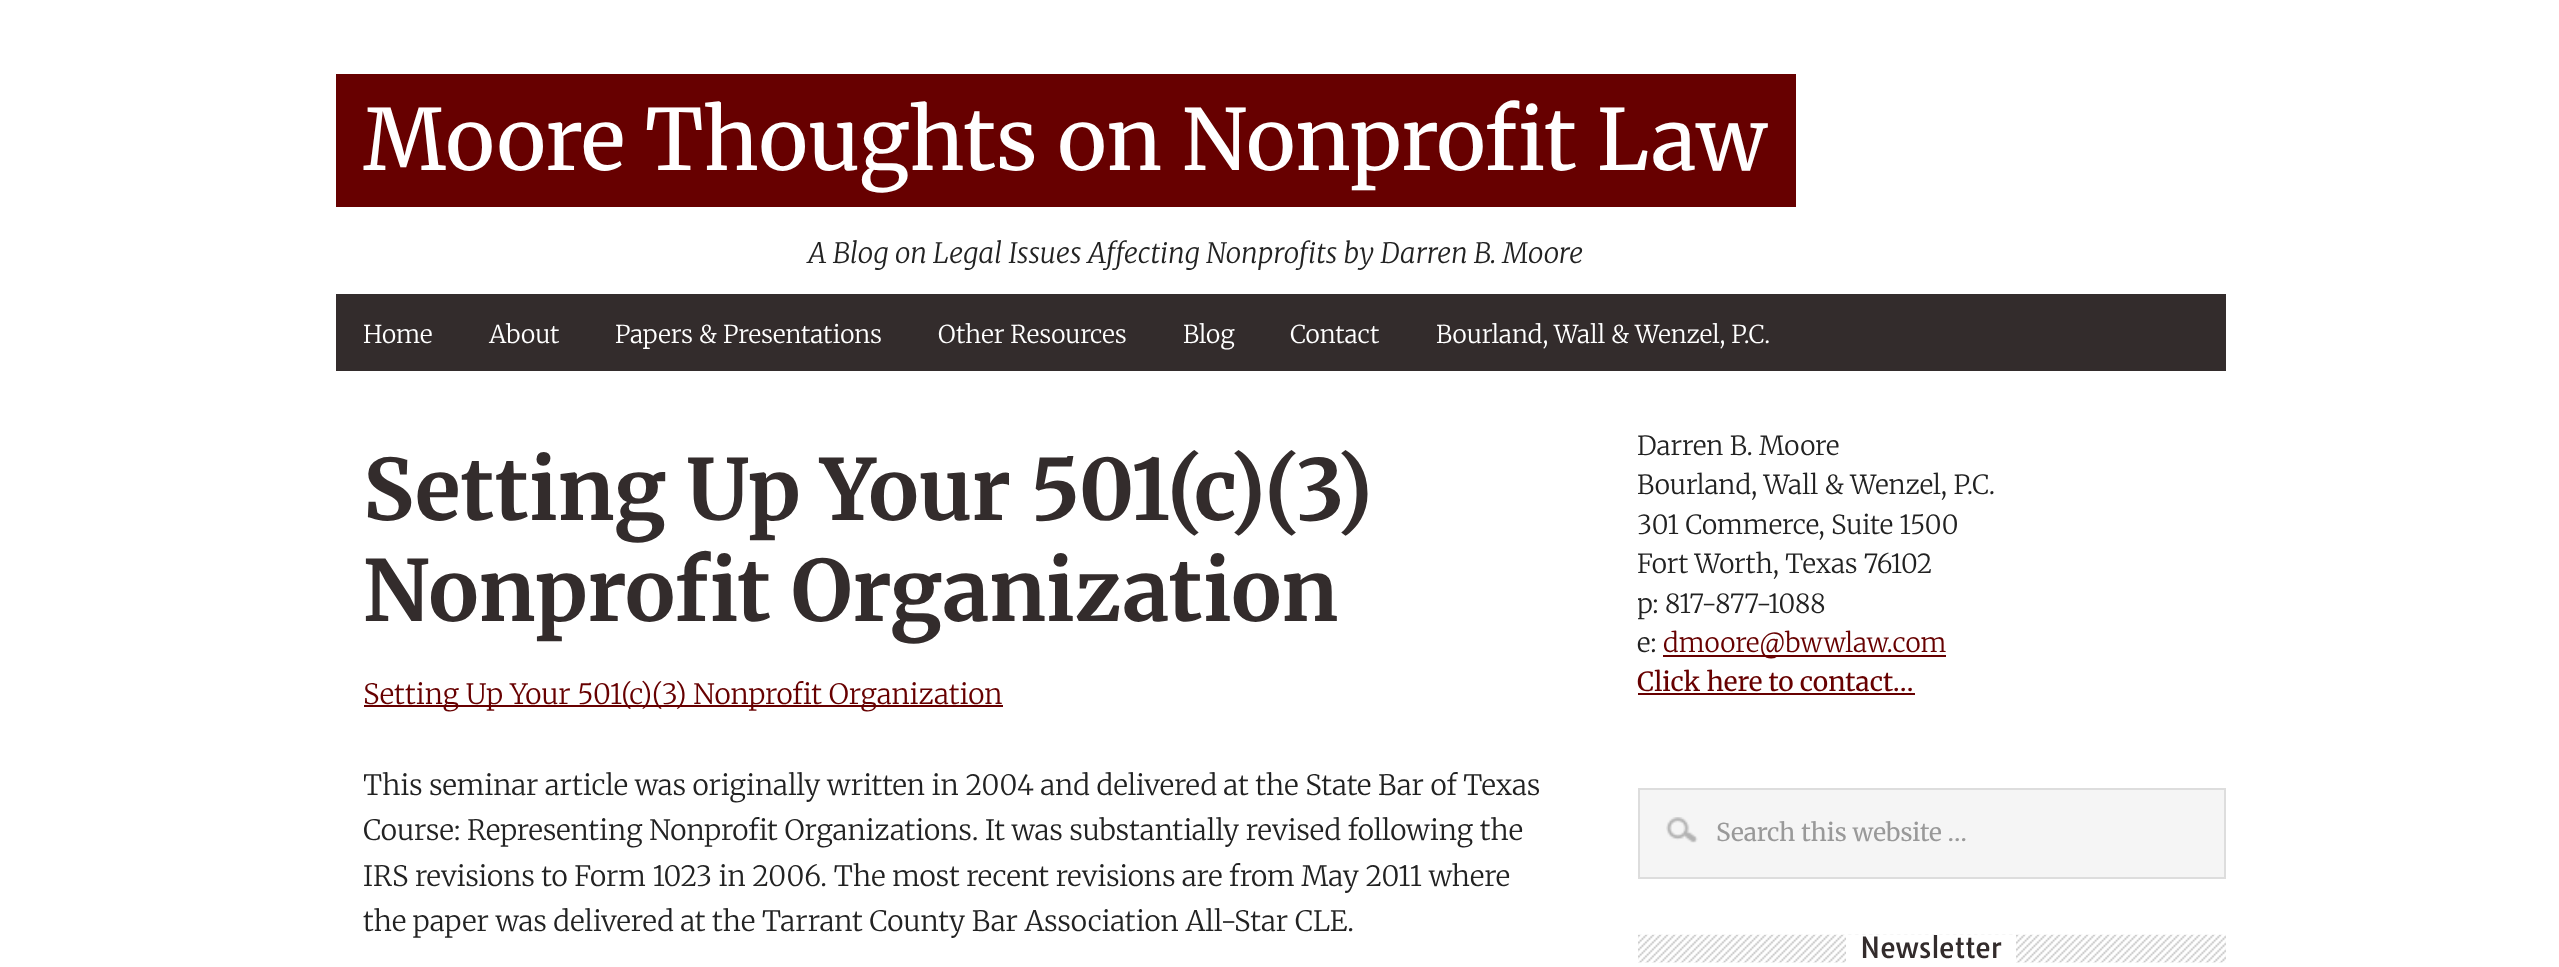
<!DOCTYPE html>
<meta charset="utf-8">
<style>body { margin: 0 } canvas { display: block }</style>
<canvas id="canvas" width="2559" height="967"></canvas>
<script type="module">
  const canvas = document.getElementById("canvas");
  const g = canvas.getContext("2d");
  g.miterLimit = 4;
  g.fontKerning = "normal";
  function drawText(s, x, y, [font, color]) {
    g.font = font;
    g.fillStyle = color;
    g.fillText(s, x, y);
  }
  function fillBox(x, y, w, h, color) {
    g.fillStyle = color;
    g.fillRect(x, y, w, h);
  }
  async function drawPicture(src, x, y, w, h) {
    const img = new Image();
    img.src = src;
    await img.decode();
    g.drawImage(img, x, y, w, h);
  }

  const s1 = ["84px Merriweather", "#FFFFFF"];
  const s2 = ["italic 300 28px Merriweather", "#222222"];
  const s3 = ["300 24.5px Merriweather", "#FFFFFF"];
  const s4 = ["bold 84px Merriweather", "#332C2C"];
  const s5 = ["300 28px Merriweather", "#670000"];
  const s6 = ["300 28px Merriweather", "#222222"];
  const s7 = ["300 26.25px Merriweather", "#222222"];
  const s8 = ["300 26.25px Merriweather", "#670000"];
  const s9 = ["26.25px Merriweather", "#670000"];
  const s10 = ["24.5px Merriweather", "#999999"];
  const s11 = ["28px Tauri", "#332C2C"];

  fillBox(0, 0, 2559, 967, "#FFFFFF");
  fillBox(336, 74, 1460, 133, "#670000");
  drawText("Moore Thoughts on Nonprofit Law", 363, 170, s1);
  drawText("A Blog on Legal Issues Affecting Nonprofits by Darren B. Moore", 808, 263, s2);
  fillBox(336, 294, 1890, 77, "#332C2C");
  drawText("Home", 363, 343, s3);
  drawText("About", 489, 343, s3);
  drawText("Papers & Presentations", 615, 343, s3);
  drawText("Other Resources", 938, 343, s3);
  drawText("Blog", 1183, 343, s3);
  drawText("Contact", 1290, 343, s3);
  drawText("Bourland, Wall & Wenzel, P.C.", 1436, 343, s3);
  drawText("Setting Up Your 501(c)(3)", 363, 520, s4);
  drawText("Nonprofit Organization", 363, 621, s4);
  fillBox(364, 705, 639, 2, "#670000");
  drawText("Setting Up Your 501(c)(3) Nonprofit Organization", 363, 704, s5);
  g.save();
  g.beginPath();
  g.rect(364, 670, 1183, 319);
  g.clip();
  drawText("This seminar article was originally written in 2004 and delivered at the State Bar of Texas", 363, 795, s6);
  g.restore();
  drawText("Course: Representing Nonprofit Organizations. It was substantially revised following the", 363, 840, s6);
  drawText("IRS revisions to Form 1023 in 2006. The most recent revisions are from May 2011 where", 363, 886, s6);
  drawText("the paper was delivered at the Tarrant County Bar Association All-Star CLE.", 363, 931, s6);
  drawText("Darren B. Moore", 1637, 455, s7);
  drawText("Bourland, Wall & Wenzel, P.C.", 1637, 494, s7);
  drawText("301 Commerce, Suite 1500", 1637, 534, s7);
  drawText("Fort Worth, Texas 76102", 1637, 573, s7);
  g.save();
  g.beginPath();
  g.rect(1638, 427, 588, 305);
  g.clip();
  drawText("p: 817-877-1088", 1637, 613, s7);
  g.restore();
  drawText("e:", 1637, 652, s7);
  fillBox(1663, 655, 283, 2, "#670000");
  drawText("dmoore@bwwlaw.com", 1663, 652, s8);
  drawText("Click here to contact…", 1637, 691, s9);
  fillBox(1638, 693, 277, 2, "#670000");
  fillBox(1640, 790, 584, 87, "#F5F5F5");
  await drawPicture("pic1.png", 1666, 817, 32, 26);
  g.strokeStyle = "#DDDDDD";
  g.lineWidth = 2;
  g.strokeRect(1639, 789, 586, 89);
  drawText("Search this website …", 1716, 841, s10);
  await drawPicture("pic2.png", 1638, 934, 588, 29);
  fillBox(1846, 935, 170, 28, "#FFFFFF");
  g.save();
  g.beginPath();
  g.rect(1638, 935, 588, 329);
  g.clip();
  drawText("Newsletter", 1860, 958, s11);
  g.restore();
</script>
